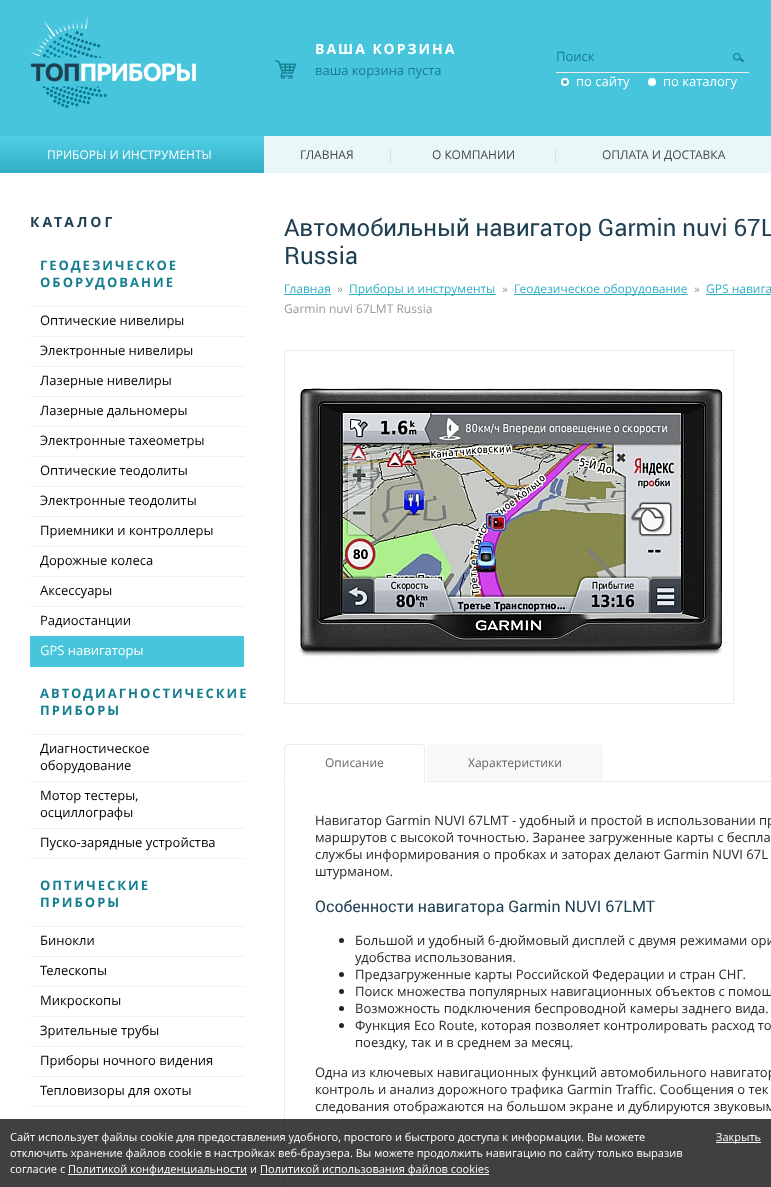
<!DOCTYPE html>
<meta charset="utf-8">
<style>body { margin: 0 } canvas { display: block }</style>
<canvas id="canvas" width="771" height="1187"></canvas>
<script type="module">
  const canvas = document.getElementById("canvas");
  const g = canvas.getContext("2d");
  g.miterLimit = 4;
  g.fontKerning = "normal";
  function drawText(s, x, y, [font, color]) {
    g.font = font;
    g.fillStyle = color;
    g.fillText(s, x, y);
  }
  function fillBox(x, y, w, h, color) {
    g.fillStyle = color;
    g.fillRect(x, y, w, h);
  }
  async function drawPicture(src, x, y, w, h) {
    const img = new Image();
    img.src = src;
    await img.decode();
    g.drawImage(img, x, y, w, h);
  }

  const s1 = ["bold 14px Open Sans", "#FFFFFF"];
  const s2 = ["13px Open Sans", "#157D90"];
  const s3 = ["13px Open Sans", "#FFFFFF"];
  const s4 = ["12px Open Sans", "#FFFFFF"];
  const s5 = ["12px Open Sans", "#464646"];
  const s6 = ["13px Open Sans", "#CFE1E4"];
  const s7 = ["bold 14px Open Sans", "#1E4052"];
  const s8 = ["bold 13px Open Sans", "#157D90"];
  const s9 = ["13px Open Sans", "#000000"];
  const s10 = ["24px Roboto", "#1E4052"];
  const s11 = ["12px Open Sans", "#32AFC6"];
  const s12 = ["12px Open Sans", "#999999"];
  const s13 = ["12px Open Sans", "#666666"];
  const s14 = ["13px Open Sans", "#252525"];
  const s15 = ["16px Roboto", "#1E4052"];
  const s16 = ["11px Open Sans", "#FFFFFF"];

  fillBox(0, 0, 771, 1187, "#FFFFFF");
  fillBox(0, 0, 771, 136, "#47C5DC");
  await drawPicture("pic1.png", 30, 15, 166, 93);
  await drawPicture("pic2.png", 275, 60, 21, 19);
  g.letterSpacing = "2px";
  drawText("ВАША КОРЗИНА", 315, 54, s1);
  g.letterSpacing = "0px";
  drawText("ваша корзина пуста", 315, 75, s2);
  fillBox(556, 72, 193, 1, "#EBEBEB");
  drawText("Поиск", 556, 61, s2);
  await drawPicture("pic3.png", 733, 53, 11, 9);
  g.fillStyle = "#FFFFFF";
  g.beginPath();
  g.arc(565, 82, 4, 0, Math.PI * 2);
  g.fill();
  drawText("по сайту", 576, 86, s3);
  g.fillStyle = "#32AFC6";
  g.beginPath();
  g.arc(565, 82, 2, 0, Math.PI * 2);
  g.fill();
  g.fillStyle = "#FFFFFF";
  g.beginPath();
  g.arc(652, 82, 4, 0, Math.PI * 2);
  g.fill();
  drawText("по каталогу", 663, 86, s3);
  fillBox(264, 136, 507, 37, "#EAF7F9");
  await drawPicture("pic4.png", 0, 136, 259, 37);
  drawText("ПРИБОРЫ И ИНСТРУМЕНТЫ", 47, 159, s4);
  await drawPicture("pic5.png", 259, 136, 5, 37);
  drawText("ГЛАВНАЯ", 300, 159, s5);
  drawText("|", 387, 159, s6);
  drawText("О КОМПАНИИ", 432, 159, s5);
  drawText("|", 552, 159, s6);
  drawText("ОПЛАТА И ДОСТАВКА", 602, 159, s5);
  g.letterSpacing = "3px";
  drawText("КАТАЛОГ", 30, 227, s7);
  fillBox(30, 306, 214, 1, "#F1F1F1");
  g.letterSpacing = "2px";
  drawText("ГЕОДЕЗИЧЕСКОЕ", 40, 270, s8);
  drawText("ОБОРУДОВАНИЕ", 40, 287, s8);
  fillBox(30, 336, 214, 1, "#F1F1F1");
  g.letterSpacing = "0px";
  drawText("Оптические нивелиры", 40, 325, s9);
  fillBox(30, 366, 214, 1, "#F1F1F1");
  drawText("Электронные нивелиры", 40, 355, s9);
  fillBox(30, 396, 214, 1, "#F1F1F1");
  drawText("Лазерные нивелиры", 40, 385, s9);
  fillBox(30, 426, 214, 1, "#F1F1F1");
  drawText("Лазерные дальномеры", 40, 415, s9);
  fillBox(30, 456, 214, 1, "#F1F1F1");
  drawText("Электронные тахеометры", 40, 445, s9);
  fillBox(30, 486, 214, 1, "#F1F1F1");
  drawText("Оптические теодолиты", 40, 475, s9);
  fillBox(30, 516, 214, 1, "#F1F1F1");
  drawText("Электронные теодолиты", 40, 505, s9);
  fillBox(30, 546, 214, 1, "#F1F1F1");
  drawText("Приемники и контроллеры", 40, 535, s9);
  fillBox(30, 576, 214, 1, "#F1F1F1");
  drawText("Дорожные колеса", 40, 565, s9);
  fillBox(30, 606, 214, 1, "#F1F1F1");
  drawText("Аксессуары", 40, 595, s9);
  drawText("Радиостанции", 40, 625, s9);
  fillBox(30, 636, 214, 31, "#47C5DC");
  drawText("GPS навигаторы", 40, 655, s3);
  fillBox(30, 734, 214, 1, "#F1F1F1");
  g.letterSpacing = "2px";
  drawText("АВТОДИАГНОСТИЧЕСКИЕ", 40, 698, s8);
  drawText("ПРИБОРЫ", 40, 715, s8);
  fillBox(30, 781, 214, 1, "#F1F1F1");
  g.letterSpacing = "0px";
  drawText("Диагностическое", 40, 753, s9);
  drawText("оборудование", 40, 770, s9);
  fillBox(30, 828, 214, 1, "#F1F1F1");
  drawText("Мотор тестеры,", 40, 800, s9);
  drawText("осциллографы", 40, 817, s9);
  fillBox(30, 858, 214, 1, "#F1F1F1");
  drawText("Пуско-зарядные устройства", 40, 847, s9);
  fillBox(30, 926, 214, 1, "#F1F1F1");
  g.letterSpacing = "2px";
  drawText("ОПТИЧЕСКИЕ", 40, 890, s8);
  drawText("ПРИБОРЫ", 40, 907, s8);
  fillBox(30, 956, 214, 1, "#F1F1F1");
  g.letterSpacing = "0px";
  drawText("Бинокли", 40, 945, s9);
  fillBox(30, 986, 214, 1, "#F1F1F1");
  drawText("Телескопы", 40, 975, s9);
  fillBox(30, 1016, 214, 1, "#F1F1F1");
  drawText("Микроскопы", 40, 1005, s9);
  fillBox(30, 1046, 214, 1, "#F1F1F1");
  drawText("Зрительные трубы", 40, 1035, s9);
  fillBox(30, 1076, 214, 1, "#F1F1F1");
  drawText("Приборы ночного видения", 40, 1065, s9);
  fillBox(30, 1106, 214, 1, "#F1F1F1");
  drawText("Тепловизоры для охоты", 40, 1095, s9);
  fillBox(30, 1136, 214, 1, "#F1F1F1");
  fillBox(30, 1183, 214, 1, "#F1F1F1");
  drawText("Автомобильный навигатор Garmin nuvi 67L", 284, 236, s10);
  drawText("Russia", 284, 264, s10);
  drawText("Главная", 284, 293, s11);
  fillBox(284, 294, 47, 1, "#32AFC6");
  drawText("»", 337, 293, s12);
  fillBox(349, 294, 147, 1, "#32AFC6");
  drawText("Приборы и инструменты", 349, 293, s11);
  drawText("»", 502, 293, s12);
  fillBox(514, 294, 174, 1, "#32AFC6");
  drawText("Геодезическое оборудование", 514, 293, s11);
  drawText("»", 694, 293, s12);
  drawText("GPS навига", 706, 293, s11);
  fillBox(706, 294, 65, 1, "#32AFC6");
  drawText("Garmin nuvi 67LMT Russia", 284, 313, s12);
  g.strokeStyle = "#EBEBEB";
  g.strokeRect(284.5, 350.5, 449, 353);
  await drawPicture("pic6.png", 299, 388, 424, 269);
  g.strokeRect(284.5, 781.5, 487, 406);
  g.fillStyle = "#FFFFFF";
  g.beginPath();
  g.roundRect(284, 744, 141, 39, [4, 4, 0, 0]);
  g.fill();
  g.fillStyle = "#EBEBEB";
  g.beginPath();
  g.moveTo(288, 744);
  g.lineTo(285, 745);
  g.lineTo(286, 746);
  g.lineTo(288, 745);
  g.lineTo(421, 745);
  g.lineTo(423, 746);
  g.lineTo(424, 745);
  g.lineTo(421, 744);
  g.closePath();
  g.fill();
  g.beginPath();
  g.moveTo(425, 783);
  g.lineTo(425, 748);
  g.bezierCurveTo(425, 747, 424.5, 746, 424, 745);
  g.lineTo(423, 746);
  g.bezierCurveTo(424, 746, 424, 747, 424, 748);
  g.lineTo(424, 782);
  g.closePath();
  g.fill();
  g.fillStyle = "#FFFFFF";
  g.beginPath();
  g.moveTo(425, 783);
  g.lineTo(424, 782);
  g.lineTo(285, 782);
  g.lineTo(284, 783);
  g.closePath();
  g.fill();
  g.fillStyle = "#EBEBEB";
  g.beginPath();
  g.moveTo(284, 783);
  g.lineTo(285, 782);
  g.lineTo(285, 748);
  g.bezierCurveTo(285, 747, 285, 746, 286, 746);
  g.lineTo(285, 745);
  g.bezierCurveTo(284.5, 746, 284, 747, 284, 748);
  g.closePath();
  g.fill();
  drawText("Описание", 325, 767, s13);
  g.fillStyle = "#F8F8F8";
  g.beginPath();
  g.roundRect(427, 744, 176, 38, [4, 4, 0, 0]);
  g.fill();
  g.fillStyle = "#EBEBEB";
  g.beginPath();
  g.moveTo(603, 782);
  g.lineTo(602, 781);
  g.lineTo(428, 781);
  g.lineTo(427, 782);
  g.closePath();
  g.fill();
  g.fillStyle = "#F8F8F8";
  g.beginPath();
  g.moveTo(427, 782);
  g.lineTo(428, 781);
  g.lineTo(428, 748);
  g.bezierCurveTo(428, 747, 428, 746, 429, 746);
  g.lineTo(428, 745);
  g.bezierCurveTo(427.5, 746, 427, 747, 427, 748);
  g.closePath();
  g.fill();
  drawText("Характеристики", 468, 767, s13);
  drawText("Навигатор Garmin NUVI 67LMT - удобный и простой в использовании пр", 315, 825, s14);
  drawText("маршрутов с высокой точностью. Заранее загруженные карты с беспла", 315, 842, s14);
  drawText("службы информирования о пробках и заторах делают Garmin NUVI 67L", 315, 859, s14);
  drawText("штурманом.", 315, 876, s14);
  drawText("Особенности навигатора Garmin NUVI 67LMT", 315, 912, s15);
  g.fillStyle = "#252525";
  g.beginPath();
  g.arc(341.5, 940.5, 2.5, 0, Math.PI * 2);
  g.fill();
  drawText("Большой и удобный 6-дюймовый дисплей с двумя режимами ори", 355, 945, s14);
  drawText("удобства использования.", 355, 962, s14);
  g.beginPath();
  g.arc(341.5, 974.5, 2.5, 0, Math.PI * 2);
  g.fill();
  drawText("Предзагруженные карты Российской Федерации и стран СНГ.", 355, 979, s14);
  g.beginPath();
  g.arc(341.5, 991.5, 2.5, 0, Math.PI * 2);
  g.fill();
  drawText("Поиск множества популярных навигационных объектов с помощ", 355, 996, s14);
  g.beginPath();
  g.arc(341.5, 1008.5, 2.5, 0, Math.PI * 2);
  g.fill();
  drawText("Возможность подключения беспроводной камеры заднего вида.", 355, 1013, s14);
  g.beginPath();
  g.arc(341.5, 1025.5, 2.5, 0, Math.PI * 2);
  g.fill();
  drawText("Функция Eco Route, которая позволяет контролировать расход то", 355, 1030, s14);
  drawText("поездку, так и в среднем за месяц.", 355, 1047, s14);
  drawText("Одна из ключевых навигационных функций автомобильного навигатор", 315, 1077, s14);
  drawText("контроль и анализ дорожного трафика Garmin Traffic. Сообщения о тек", 315, 1094, s14);
  drawText("следования отображаются на большом экране и дублируются звуковым", 315, 1111, s14);
  fillBox(0, 1119, 771, 68, "rgba(0, 0, 0, 0.75)");
  drawText("Сайт использует файлы cookie для предоставления удобного, простого и быстрого доступа к информации. Вы можете", 10, 1141, s16);
  drawText("отключить хранение файлов cookie в настройках веб-браузера. Вы можете продолжить навигацию по сайту только выразив", 10, 1157, s16);
  drawText("согласие с", 10, 1173, s16);
  fillBox(68, 1174, 179, 1, "#FFFFFF");
  drawText("Политикой конфиденциальности и", 68, 1173, s16);
  fillBox(260, 1174, 229, 1, "#FFFFFF");
  drawText("Политикой использования файлов cookies", 260, 1173, s16);
  fillBox(716, 1142, 45, 1, "#FFFFFF");
  drawText("Закрыть", 716, 1141, s16);
</script>
